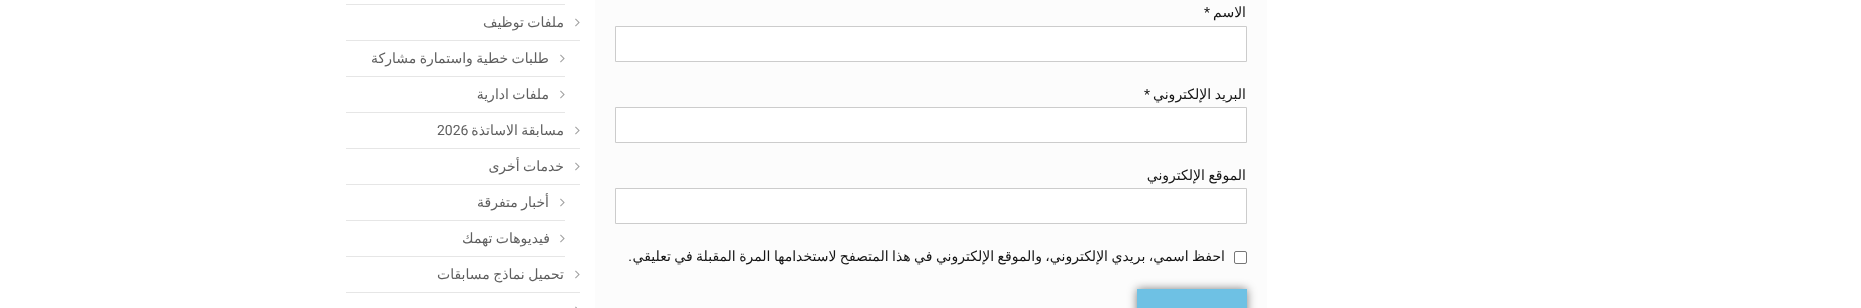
<!DOCTYPE html>
<meta charset="utf-8">
<style>body { margin: 0 } canvas { display: block }</style>
<canvas id="canvas" width="1861" height="308"></canvas>
<script type="module">
  const canvas = document.getElementById("canvas");
  const g = canvas.getContext("2d");
  g.miterLimit = 4;
  g.fontKerning = "normal";
  function drawText(s, x, y, [font, color]) {
    g.font = font;
    g.fillStyle = color;
    g.fillText(s, x, y);
  }
  function fillBox(x, y, w, h, color) {
    g.fillStyle = color;
    g.fillRect(x, y, w, h);
  }
  async function drawPicture(src, x, y, w, h) {
    const img = new Image();
    img.src = src;
    await img.decode();
    g.drawImage(img, x, y, w, h);
  }

  const s1 = ["14px DejaVu Sans", "#141414"];
  const s2 = ["14px Roboto", "#141414"];
  const s3 = ["14px DejaVu Sans", "#5F5F5F"];
  const s4 = ["14px Roboto", "#5F5F5F"];

  fillBox(0, 0, 1861, 308, "#FFFFFF");
  fillBox(595, 0, 672, 308, "#FCFCFC");
  g.direction = "rtl";
  drawText("الاسم", 1246, 17, s1);
  g.direction = "ltr";
  drawText("*", 1204, 17, s2);
  g.fillStyle = "#FFFFFF";
  g.beginPath();
  g.rect(615.5, 26.5, 631, 35);
  g.fill();
  g.strokeStyle = "#CCCCCC";
  g.stroke();
  g.wordSpacing = "-1px";
  g.direction = "rtl";
  drawText("البريد الإلكتروني", 1246, 99, s1);
  g.wordSpacing = "0px";
  g.direction = "ltr";
  drawText("*", 1144, 99, s2);
  g.fillStyle = "#FFFFFF";
  g.beginPath();
  g.rect(615.5, 107.5, 631, 35);
  g.fill();
  g.stroke();
  g.wordSpacing = "-1px";
  g.direction = "rtl";
  drawText("الموقع الإلكتروني", 1246, 180, s1);
  g.fillStyle = "#FFFFFF";
  g.beginPath();
  g.rect(615.5, 188.5, 631, 35);
  g.fill();
  g.stroke();
  g.beginPath();
  g.roundRect(1234.5, 251.5, 12, 12, 1.5);
  g.fill();
  g.strokeStyle = "#767676";
  g.stroke();
  drawText("احفظ اسمي، بريدي الإلكتروني، والموقع الإلكتروني في هذا المتصفح لاستخدامها المرة المقبلة في تعليقي", 1225, 261, s1);
  g.wordSpacing = "0px";
  drawText(".", 632, 261, s2);
  g.fillStyle = "rgba(0, 0, 0, 0.5)";
  g.filter = "blur(5px)";
  g.beginPath();
  g.rect(1137, 289, 110, 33);
  g.fill();
  g.filter = "none";
  fillBox(1137, 289, 110, 19, "#6EC1E4");
  fillBox(346, 4, 219, 1, "#E6E6E6");
  fillBox(346, 40, 234, 1, "#E6E6E6");
  await drawPicture("pic1.png", 575, 18, 5, 9);
  g.wordSpacing = "-1px";
  drawText("ملفات توظيف", 564, 27, s3);
  fillBox(346, 76, 219, 1, "#E6E6E6");
  await drawPicture("pic1.png", 560, 54, 5, 9);
  drawText("طلبات خطية واستمارة مشاركة", 549, 63, s3);
  fillBox(346, 112, 219, 1, "#E6E6E6");
  await drawPicture("pic1.png", 560, 90, 5, 9);
  drawText("ملفات ادارية", 549, 99, s3);
  fillBox(346, 148, 234, 1, "#E6E6E6");
  await drawPicture("pic1.png", 575, 126, 5, 9);
  drawText("مسابقة الاساتذة", 564, 135, s3);
  g.wordSpacing = "0px";
  g.direction = "ltr";
  drawText("2026", 437, 135, s4);
  fillBox(346, 184, 234, 1, "#E6E6E6");
  await drawPicture("pic1.png", 575, 162, 5, 9);
  g.wordSpacing = "-1px";
  g.direction = "rtl";
  drawText("خدمات أخرى", 564, 171, s3);
  fillBox(346, 220, 219, 1, "#E6E6E6");
  await drawPicture("pic1.png", 560, 198, 5, 9);
  drawText("أخبار متفرقة", 549, 207, s3);
  fillBox(346, 256, 219, 1, "#E6E6E6");
  await drawPicture("pic1.png", 560, 234, 5, 9);
  drawText("فيديوهات تهمك", 550, 243, s3);
  fillBox(346, 292, 234, 1, "#E6E6E6");
  await drawPicture("pic1.png", 575, 270, 5, 9);
  drawText("تحميل نماذج مسابقات", 564, 279, s3);
  await drawPicture("pic2.png", 575, 306, 2, 2);
</script>
